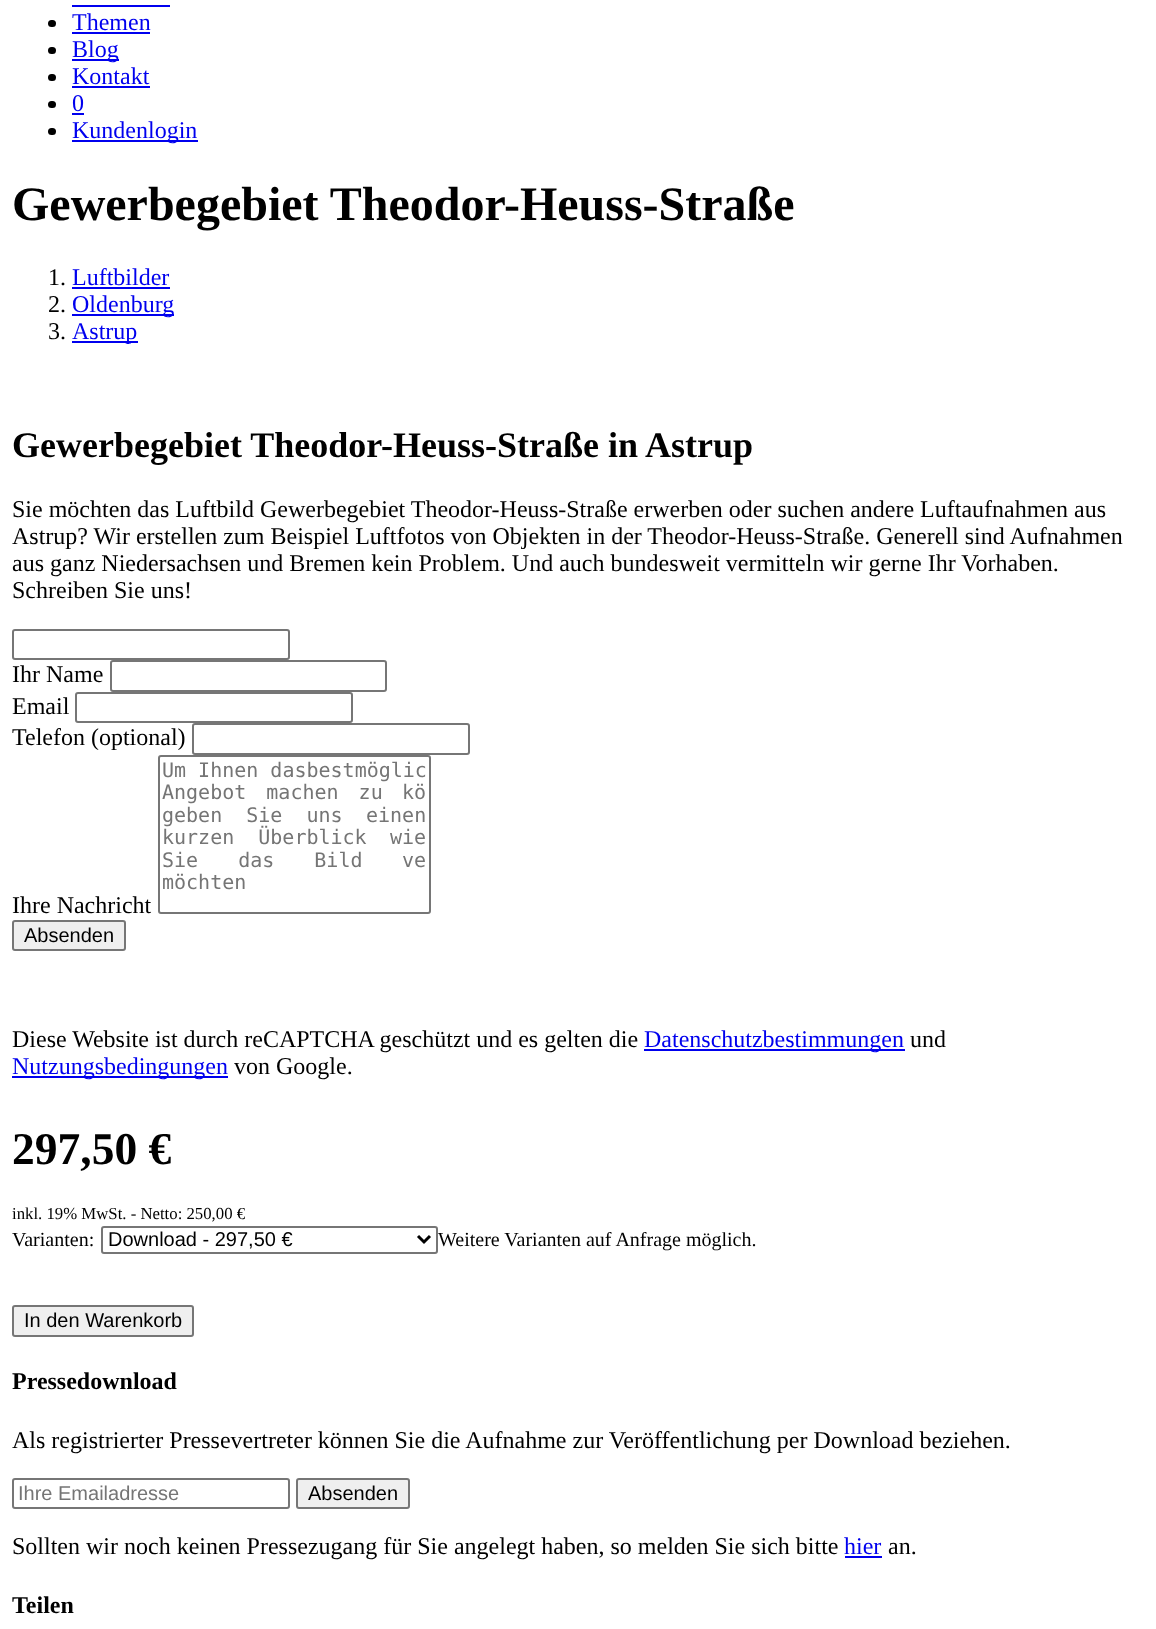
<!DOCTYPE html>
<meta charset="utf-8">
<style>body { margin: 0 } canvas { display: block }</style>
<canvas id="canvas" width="1156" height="1629"></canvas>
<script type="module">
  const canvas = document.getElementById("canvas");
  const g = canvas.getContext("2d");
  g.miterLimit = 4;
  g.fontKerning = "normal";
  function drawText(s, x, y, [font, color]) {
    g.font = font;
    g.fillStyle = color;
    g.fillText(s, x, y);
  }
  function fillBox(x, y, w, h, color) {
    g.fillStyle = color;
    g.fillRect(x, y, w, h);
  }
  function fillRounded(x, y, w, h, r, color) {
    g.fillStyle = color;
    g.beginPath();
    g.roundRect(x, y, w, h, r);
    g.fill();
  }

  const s1 = ["24px Liberation Serif", "#0000EE"];
  const s2 = ["bold 48px Liberation Serif", "#000000"];
  const s3 = ["24px Liberation Serif", "#000000"];
  const s4 = ["bold 36px Liberation Serif", "#000000"];
  const s5 = ["20px DejaVu Sans Mono", "#757575"];
  const s6 = ["20px Liberation Sans", "#000000"];
  const s7 = ["bold 45.5px Liberation Serif", "#000000"];
  const s8 = ["16.75px Liberation Serif", "#000000"];
  const s9 = ["20px Liberation Serif", "#000000"];
  const s10 = ["bold 24px Liberation Serif", "#000000"];
  const s11 = ["20px Liberation Sans", "#757575"];

  fillBox(0, 0, 1156, 1629, "#FFFFFF");
  fillBox(72, 5, 98, 2, "#0000EE");
  fillRounded(48, 20, 8, 7, 3.5, "#000000");
  drawText("Themen", 72, 30, s1);
  fillBox(72, 32, 78, 2, "#0000EE");
  fillRounded(48, 47, 8, 7, 3.5, "#000000");
  fillBox(72, 59, 47, 2, "#0000EE");
  drawText("Blog", 72, 57, s1);
  fillRounded(48, 74, 8, 7, 3.5, "#000000");
  drawText("Kontakt", 72, 84, s1);
  fillBox(72, 86, 78, 2, "#0000EE");
  fillRounded(48, 101, 8, 7, 3.5, "#000000");
  drawText("0", 72, 111, s1);
  fillBox(72, 113, 12, 2, "#0000EE");
  fillRounded(48, 128, 8, 7, 3.5, "#000000");
  fillBox(72, 140, 126, 2, "#0000EE");
  drawText("Kundenlogin", 72, 138, s1);
  drawText("Gewerbegebiet Theodor-Heuss-Straße", 12, 220, s2);
  drawText("1.", 48, 285, s3);
  drawText("Luftbilder", 72, 285, s1);
  fillBox(72, 287, 98, 2, "#0000EE");
  drawText("2.", 48, 312, s3);
  fillBox(72, 314, 102, 2, "#0000EE");
  drawText("Oldenburg", 72, 312, s1);
  drawText("3.", 48, 339, s3);
  fillBox(72, 341, 66, 2, "#0000EE");
  drawText("Astrup", 72, 339, s1);
  drawText("Gewerbegebiet Theodor-Heuss-Straße in Astrup", 12, 457, s4);
  drawText("Sie möchten das Luftbild Gewerbegebiet Theodor-Heuss-Straße erwerben oder suchen andere Luftaufnahmen aus", 12, 517, s3);
  drawText("Astrup? Wir erstellen zum Beispiel Luftfotos von Objekten in der Theodor-Heuss-Straße. Generell sind Aufnahmen", 12, 544, s3);
  drawText("aus ganz Niedersachsen und Bremen kein Problem. Und auch bundesweit vermitteln wir gerne Ihr Vorhaben.", 12, 571, s3);
  drawText("Schreiben Sie uns!", 12, 598, s3);
  g.beginPath();
  g.roundRect(13, 630, 276, 29, 2);
  g.strokeStyle = "#767676";
  g.lineWidth = 2;
  g.stroke();
  drawText("Ihr Name", 12, 682, s3);
  g.beginPath();
  g.roundRect(111, 661, 275, 30, 2);
  g.stroke();
  drawText("Email", 12, 714, s3);
  g.beginPath();
  g.roundRect(76, 693, 276, 29, 2);
  g.stroke();
  drawText("Telefon (optional)", 12, 745, s3);
  g.beginPath();
  g.roundRect(193, 724, 276, 30, 2);
  g.stroke();
  g.beginPath();
  g.roundRect(159, 756, 271, 157, 2);
  g.stroke();
  drawText("Um Ihnen dasbestmöglic", 162, 777, s5);
  g.wordSpacing = "8px";
  drawText("Angebot machen zu", 162, 799, s5);
  g.wordSpacing = "0px";
  drawText("kö", 402, 799, s5);
  g.wordSpacing = "12px";
  drawText("geben Sie uns", 162, 822, s5);
  g.wordSpacing = "0px";
  drawText("einen", 366, 822, s5);
  g.wordSpacing = "12px";
  drawText("kurzen Überblick", 162, 844, s5);
  g.wordSpacing = "0px";
  drawText("wie", 390, 844, s5);
  g.wordSpacing = "28px";
  drawText("Sie das Bild", 162, 867, s5);
  g.wordSpacing = "0px";
  drawText("ve", 402, 867, s5);
  drawText("möchten", 162, 889, s5);
  drawText("Ihre Nachricht", 12, 913, s3);
  g.fillStyle = "#EFEFEF";
  g.beginPath();
  g.roundRect(13, 921, 112, 29, 2);
  g.fill();
  g.stroke();
  drawText("Absenden", 24, 942, s6);
  drawText("Diese Website ist durch reCAPTCHA geschützt und es gelten die", 12, 1047, s3);
  fillBox(644, 1049, 261, 2, "#0000EE");
  drawText("Datenschutzbestimmungen", 644, 1047, s1);
  drawText("und", 910, 1047, s3);
  fillBox(12, 1076, 216, 2, "#0000EE");
  drawText("Nutzungsbedingungen", 12, 1074, s1);
  drawText("von Google.", 234, 1074, s3);
  drawText("297,50 €", 12, 1164, s7);
  drawText("inkl. 19% MwSt. - Netto: 250,00 €", 12, 1219, s8);
  drawText("Varianten:", 12, 1246, s9);
  g.beginPath();
  g.roundRect(102, 1227, 335, 26, 2);
  g.stroke();
  g.beginPath();
  g.moveTo(418, 1236);
  g.lineTo(424, 1242);
  g.lineTo(430, 1236);
  g.strokeStyle = "#000000";
  g.lineWidth = 3;
  g.stroke();
  drawText("Download - 297,50 €", 108, 1246, s6);
  drawText("Weitere Varianten auf Anfrage möglich.", 438, 1246, s9);
  g.fillStyle = "#EFEFEF";
  g.beginPath();
  g.roundRect(13, 1306, 180, 30, 2);
  g.fill();
  g.strokeStyle = "#767676";
  g.lineWidth = 2;
  g.stroke();
  drawText("In den Warenkorb", 24, 1327, s6);
  drawText("Pressedownload", 12, 1389, s10);
  drawText("Als registrierter Pressevertreter können Sie die Aufnahme zur Veröffentlichung per Download beziehen.", 12, 1448, s3);
  g.beginPath();
  g.roundRect(13, 1479, 276, 29, 2);
  g.stroke();
  drawText("Ihre Emailadresse", 18, 1500, s11);
  g.fillStyle = "#EFEFEF";
  g.beginPath();
  g.roundRect(297, 1479, 112, 29, 2);
  g.fill();
  g.stroke();
  drawText("Absenden", 308, 1500, s6);
  drawText("Sollten wir noch keinen Pressezugang für Sie angelegt haben, so melden Sie sich bitte", 12, 1554, s3);
  drawText("hier", 844, 1554, s1);
  fillBox(845, 1556, 37, 2, "#0000EE");
  drawText("an.", 888, 1554, s3);
  drawText("Teilen", 12, 1613, s10);
</script>
